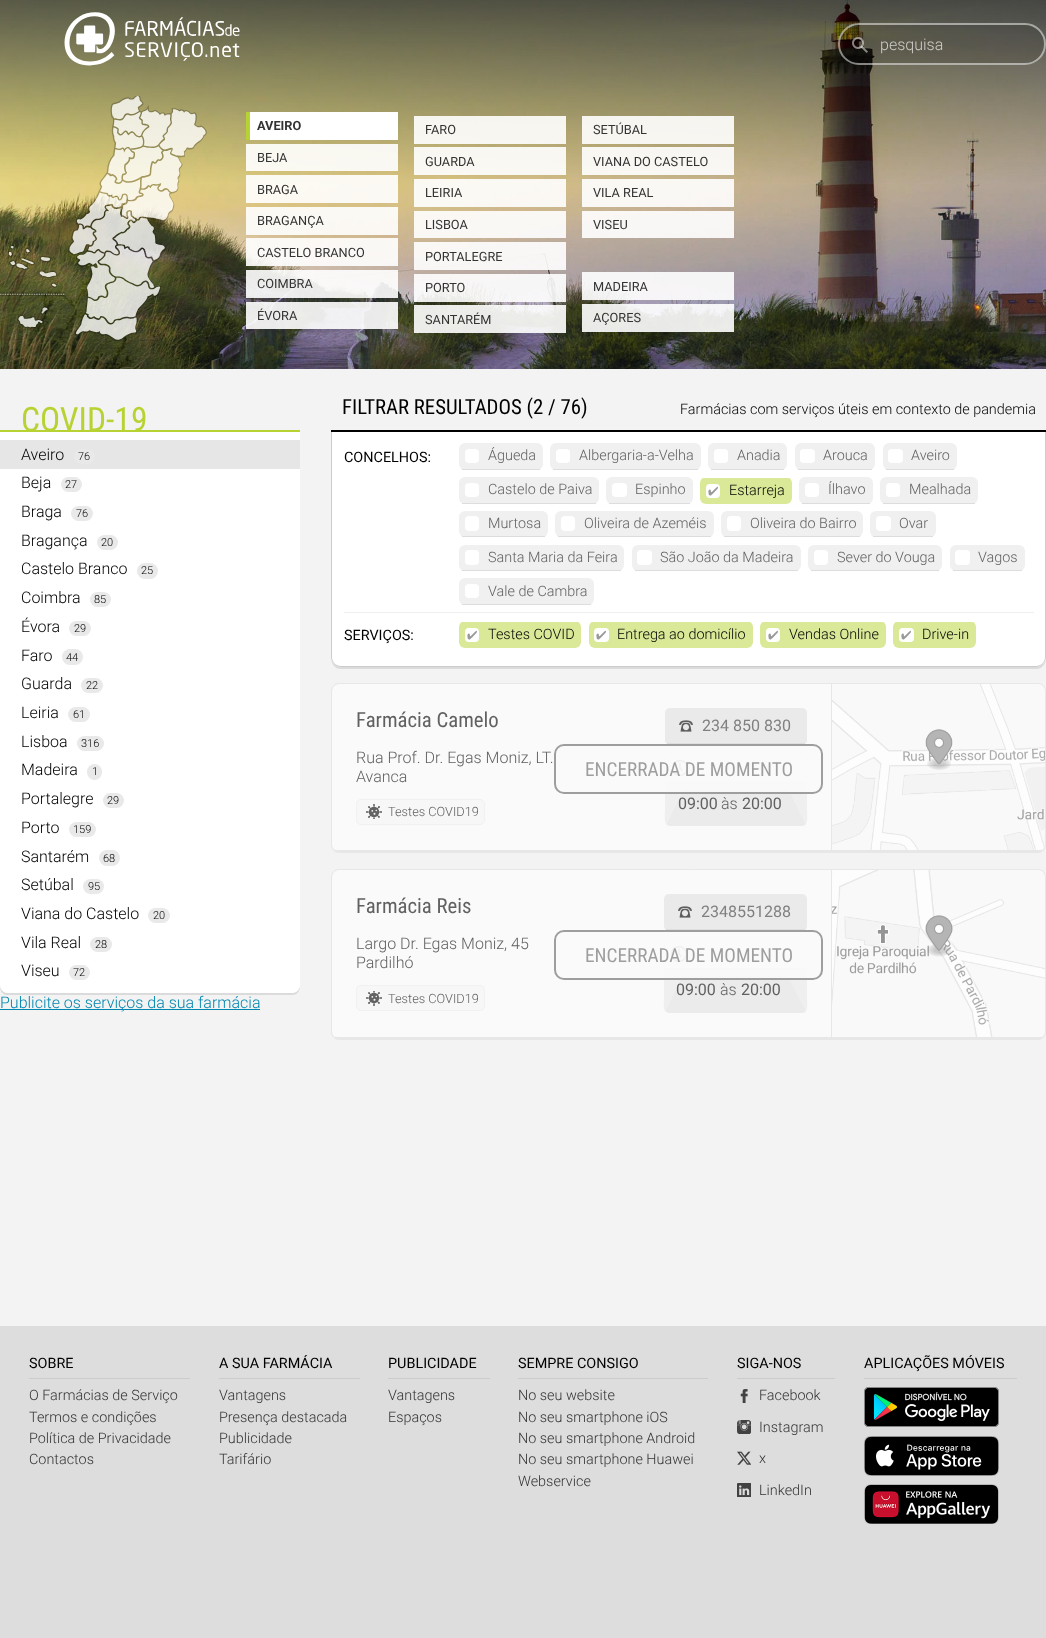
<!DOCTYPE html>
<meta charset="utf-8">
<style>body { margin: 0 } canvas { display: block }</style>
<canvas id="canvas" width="1046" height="1638"></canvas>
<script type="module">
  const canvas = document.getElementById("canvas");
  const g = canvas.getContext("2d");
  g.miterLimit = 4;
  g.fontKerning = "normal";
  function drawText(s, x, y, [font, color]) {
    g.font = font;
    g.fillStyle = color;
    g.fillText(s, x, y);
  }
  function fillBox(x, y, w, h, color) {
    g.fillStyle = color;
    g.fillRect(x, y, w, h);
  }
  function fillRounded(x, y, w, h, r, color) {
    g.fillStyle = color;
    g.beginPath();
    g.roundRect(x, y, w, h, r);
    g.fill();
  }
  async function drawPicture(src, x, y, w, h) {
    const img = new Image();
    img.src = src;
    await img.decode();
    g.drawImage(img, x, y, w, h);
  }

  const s1 = ["300 16px Roboto", "#CECDC9"];
  const s2 = ["bold 12.75px Roboto", "#333333"];
  const s3 = ["12.75px Roboto", "#333333"];
  const s4 = ["33.5px Roboto Condensed", "#B7D333"];
  const s5 = ["300 16px Roboto", "#000000"];
  const s6 = ["300 11px Roboto", "#000000"];
  const s7 = ["300 16px Roboto", "#0086AF"];
  const s8 = ["20.75px Roboto Condensed", "#000000"];
  const s9 = ["300 14.4px Roboto", "#000000"];
  const s10 = ["14.4px Roboto", "#000000"];
  const s11 = ["300 14.4px Roboto", "#616161"];
  const s12 = ["20.75px Roboto Condensed", "#616161"];
  const s13 = ["300 16px Roboto", "#616161"];
  const s14 = ["300 12.75px Roboto", "#616161"];
  const s15 = ["16px Roboto", "#808080"];
  const s16 = ["16px Roboto", "#616161"];
  const s17 = ["19.25px Roboto Condensed", "#9E9E9E"];
  const s18 = ["300 14.4px Roboto", "#333333"];

  fillBox(0, 0, 1046, 1638, "#F3F3F3");
  await drawPicture("pic3.png", 0, 0, 1046, 369);
  await drawPicture("pic1.png", 64, 12, 176, 54);
  fillRounded(838, 23, 208, 42, 21, "rgba(0, 0, 0, 0.1)");
  g.beginPath();
  g.roundRect(839, 24, 206, 40, 20);
  g.strokeStyle = "rgba(255, 255, 255, 0.5)";
  g.lineWidth = 2;
  g.stroke();
  await drawPicture("pic2.png", 852, 37, 16, 16);
  drawText("pesquisa", 880, 50, s1);
  await drawPicture("pic4.png", 0, 96, 207, 245);
  fillBox(250, 112, 148, 28, "#FFFFFF");
  fillBox(246, 112, 4, 28, "#B7D333");
  drawText("AVEIRO", 257, 130, s2);
  fillBox(246, 144, 152, 27, "rgba(255, 255, 255, 0.9)");
  drawText("BEJA", 257, 162, s3);
  fillBox(246, 175, 152, 28, "rgba(255, 255, 255, 0.9)");
  drawText("BRAGA", 257, 194, s3);
  fillBox(246, 207, 152, 28, "rgba(255, 255, 255, 0.9)");
  drawText("BRAGANÇA", 257, 225, s3);
  fillBox(246, 238, 152, 28, "rgba(255, 255, 255, 0.9)");
  drawText("CASTELO BRANCO", 257, 257, s3);
  fillBox(246, 270, 152, 28, "rgba(255, 255, 255, 0.9)");
  drawText("COIMBRA", 257, 288, s3);
  fillBox(246, 302, 152, 27, "rgba(255, 255, 255, 0.9)");
  drawText("ÉVORA", 257, 320, s3);
  fillBox(414, 116, 152, 28, "rgba(255, 255, 255, 0.9)");
  drawText("FARO", 425, 134, s3);
  fillBox(414, 147, 152, 28, "rgba(255, 255, 255, 0.9)");
  drawText("GUARDA", 425, 166, s3);
  fillBox(414, 179, 152, 28, "rgba(255, 255, 255, 0.9)");
  drawText("LEIRIA", 425, 197, s3);
  fillBox(414, 211, 152, 27, "rgba(255, 255, 255, 0.9)");
  drawText("LISBOA", 425, 229, s3);
  fillBox(414, 242, 152, 28, "rgba(255, 255, 255, 0.9)");
  drawText("PORTALEGRE", 425, 261, s3);
  fillBox(414, 274, 152, 28, "rgba(255, 255, 255, 0.9)");
  drawText("PORTO", 425, 292, s3);
  fillBox(414, 305, 152, 28, "rgba(255, 255, 255, 0.9)");
  drawText("SANTARÉM", 425, 324, s3);
  fillBox(582, 116, 152, 28, "rgba(255, 255, 255, 0.9)");
  drawText("SETÚBAL", 593, 134, s3);
  fillBox(582, 147, 152, 28, "rgba(255, 255, 255, 0.9)");
  drawText("VIANA DO CASTELO", 593, 166, s3);
  fillBox(582, 179, 152, 28, "rgba(255, 255, 255, 0.9)");
  drawText("VILA REAL", 593, 197, s3);
  fillBox(582, 211, 152, 27, "rgba(255, 255, 255, 0.9)");
  drawText("VISEU", 593, 229, s3);
  fillBox(582, 272, 152, 28, "rgba(255, 255, 255, 0.9)");
  drawText("MADEIRA", 593, 291, s3);
  fillBox(582, 304, 152, 28, "rgba(255, 255, 255, 0.9)");
  drawText("AÇORES", 593, 322, s3);
  fillBox(0, 430, 300, 2, "#B7D333");
  drawText("COVID-19", 21, 431, s4);
  g.fillStyle = "#DBDBDB";
  g.beginPath();
  g.moveTo(0, 985);
  g.bezierCurveTo(0, 989, 1, 994, 6, 995);
  g.lineTo(292, 995);
  g.bezierCurveTo(298, 995, 300, 990, 300, 985);
  g.bezierCurveTo(300, 989, 296, 993, 292, 993);
  g.lineTo(8, 993);
  g.bezierCurveTo(4, 993, 0, 989, 0, 985);
  g.closePath();
  g.fill();
  g.fillStyle = "#FFFFFF";
  g.beginPath();
  g.roundRect(0, 432, 300, 561, [0, 0, 8, 8]);
  g.fill();
  fillBox(0, 440, 300, 29, "#E6E6E6");
  drawText("Aveiro", 21, 460, s5);
  fillRounded(74, 449, 21, 15, 7.5, "#E9E9E9");
  drawText("76", 78, 460, s6);
  drawText("Beja", 21, 488, s5);
  fillRounded(61, 477, 21, 15, 7.5, "#E9E9E9");
  drawText("27", 65, 488, s6);
  drawText("Braga", 21, 517, s5);
  fillRounded(71, 506, 22, 15, 7.5, "#E9E9E9");
  drawText("76", 76, 517, s6);
  drawText("Bragança", 21, 546, s5);
  fillRounded(97, 535, 21, 15, 7.5, "#E9E9E9");
  drawText("20", 101, 546, s6);
  drawText("Castelo Branco", 21, 574, s5);
  fillRounded(137, 563, 21, 16, 8, "#E9E9E9");
  drawText("25", 141, 574, s6);
  drawText("Coimbra", 21, 603, s5);
  fillRounded(90, 592, 21, 15, 7.5, "#E9E9E9");
  drawText("85", 94, 603, s6);
  drawText("Évora", 21, 632, s5);
  fillRounded(69, 621, 22, 15, 7.5, "#E9E9E9");
  drawText("29", 74, 632, s6);
  drawText("Faro", 21, 661, s5);
  fillRounded(62, 649, 21, 16, 8, "#E9E9E9");
  drawText("44", 66, 661, s6);
  drawText("Guarda", 21, 689, s5);
  fillRounded(81, 678, 22, 15, 7.5, "#E9E9E9");
  drawText("22", 86, 689, s6);
  drawText("Leiria", 21, 718, s5);
  fillRounded(68, 707, 22, 15, 7.5, "#E9E9E9");
  drawText("61", 73, 718, s6);
  drawText("Lisboa", 21, 747, s5);
  fillRounded(77, 736, 27, 15, 7.5, "#E9E9E9");
  drawText("316", 81, 747, s6);
  drawText("Madeira", 21, 775, s5);
  fillRounded(87, 764, 15, 16, 7.5, "#E9E9E9");
  drawText("1", 92, 775, s6);
  drawText("Portalegre", 21, 804, s5);
  fillRounded(103, 793, 21, 15, 7.5, "#E9E9E9");
  drawText("29", 107, 804, s6);
  drawText("Porto", 21, 833, s5);
  fillRounded(69, 822, 27, 15, 7.5, "#E9E9E9");
  drawText("159", 73, 833, s6);
  drawText("Santarém", 21, 862, s5);
  fillRounded(99, 850, 21, 16, 8, "#E9E9E9");
  drawText("68", 103, 862, s6);
  drawText("Setúbal", 21, 890, s5);
  fillRounded(83, 879, 21, 15, 7.5, "#E9E9E9");
  drawText("95", 88, 890, s6);
  drawText("Viana do Castelo", 21, 919, s5);
  fillRounded(148, 908, 22, 15, 7.5, "#E9E9E9");
  drawText("20", 153, 919, s6);
  drawText("Vila Real", 21, 948, s5);
  fillRounded(90, 937, 22, 15, 7.5, "#E9E9E9");
  drawText("28", 95, 948, s6);
  drawText("Viseu", 21, 976, s5);
  fillRounded(69, 965, 21, 15, 7.5, "#E9E9E9");
  drawText("72", 73, 976, s6);
  fillBox(0, 1009, 260, 1, "#0086AF");
  drawText("Publicite os serviços da sua farmácia", 0, 1008, s7);
  fillBox(331, 430, 715, 2, "#000000");
  drawText("FILTRAR RESULTADOS (2 / 76)", 342, 414, s8);
  drawText("Farmácias com serviços úteis em contexto de pandemia", 680, 414, s9);
  g.fillStyle = "#DBDBDB";
  g.beginPath();
  g.moveTo(331, 657);
  g.bezierCurveTo(331, 663, 334, 669, 341, 669);
  g.lineTo(1036, 669);
  g.bezierCurveTo(1043, 669, 1046, 663, 1046, 657);
  g.bezierCurveTo(1046, 662, 1041, 667, 1036, 667);
  g.lineTo(341, 667);
  g.bezierCurveTo(336, 667, 331, 662, 331, 657);
  g.closePath();
  g.fill();
  g.fillStyle = "#FFFFFF";
  g.beginPath();
  g.roundRect(331, 432, 715, 235, [0, 0, 10, 10]);
  g.fill();
  g.fillStyle = "#CCCCCC";
  g.beginPath();
  g.moveTo(331, 432);
  g.lineTo(1046, 432);
  g.lineTo(1046, 657);
  g.bezierCurveTo(1046, 662, 1041, 667, 1036, 667);
  g.lineTo(341, 667);
  g.bezierCurveTo(336, 667, 331, 662, 331, 657);
  g.closePath();
  g.moveTo(332, 432);
  g.lineTo(1045, 432);
  g.lineTo(1045, 657);
  g.bezierCurveTo(1045, 662, 1041, 666, 1036, 666);
  g.lineTo(341, 666);
  g.bezierCurveTo(336, 666, 332, 662, 332, 657);
  g.closePath();
  g.fill("evenodd");
  fillBox(344, 612, 690, 1, "#F0F0F0");
  drawText("CONCELHOS:", 344, 462, s10);
  fillRounded(459, 443, 84, 27, 6, "#F0F0F0");
  fillBox(462, 469, 78, 1, "#DDDDDD");
  fillRounded(465, 449, 14, 14, 4, "#FFFFFF");
  drawText("Águeda", 488, 460, s11);
  fillRounded(550, 443, 151, 27, 6, "#F0F0F0");
  fillBox(553, 469, 145, 1, "#DDDDDD");
  fillRounded(556, 449, 14, 14, 4, "#FFFFFF");
  drawText("Albergaria-a-Velha", 579, 460, s11);
  fillRounded(708, 443, 79, 27, 6, "#F0F0F0");
  fillBox(711, 469, 73, 1, "#DDDDDD");
  fillRounded(714, 449, 14, 14, 4, "#FFFFFF");
  drawText("Anadia", 737, 460, s11);
  fillRounded(795, 443, 80, 27, 6, "#F0F0F0");
  fillBox(798, 469, 74, 1, "#DDDDDD");
  fillRounded(800, 449, 15, 14, 4, "#FFFFFF");
  drawText("Arouca", 823, 460, s11);
  fillRounded(883, 443, 74, 27, 6, "#F0F0F0");
  fillBox(886, 469, 68, 1, "#DDDDDD");
  fillRounded(888, 449, 15, 14, 4, "#FFFFFF");
  drawText("Aveiro", 911, 460, s11);
  fillRounded(459, 477, 140, 27, 6, "#F0F0F0");
  fillBox(462, 503, 134, 1, "#DDDDDD");
  fillRounded(465, 483, 14, 14, 4, "#FFFFFF");
  drawText("Castelo de Paiva", 488, 494, s11);
  fillRounded(606, 477, 87, 27, 6, "#F0F0F0");
  fillBox(609, 503, 81, 1, "#DDDDDD");
  fillRounded(612, 483, 15, 14, 4, "#FFFFFF");
  drawText("Espinho", 635, 494, s11);
  fillRounded(700, 477, 92, 27, 6, "#DAE998");
  fillBox(703, 477, 86, 1, "#FFFFFF");
  fillRounded(706, 484, 14, 14, 4, "#FFFFFF");
  await drawPicture("pic5.png", 708, 486, 10, 10);
  drawText("Estarreja", 729, 495, s9);
  fillRounded(799, 477, 74, 27, 6, "#F0F0F0");
  fillBox(802, 503, 68, 1, "#DDDDDD");
  fillRounded(805, 483, 14, 14, 4, "#FFFFFF");
  drawText("Ílhavo", 828, 494, s11);
  fillRounded(880, 477, 98, 27, 6, "#F0F0F0");
  fillBox(883, 503, 92, 1, "#DDDDDD");
  fillRounded(886, 483, 14, 14, 4, "#FFFFFF");
  drawText("Mealhada", 909, 494, s11);
  fillRounded(459, 511, 89, 26, 6, "#F0F0F0");
  fillBox(462, 536, 83, 1, "#DDDDDD");
  fillRounded(465, 516, 14, 15, 4, "#FFFFFF");
  drawText("Murtosa", 488, 528, s11);
  fillRounded(555, 511, 159, 26, 6, "#F0F0F0");
  fillBox(558, 536, 153, 1, "#DDDDDD");
  fillRounded(561, 516, 14, 15, 4, "#FFFFFF");
  drawText("Oliveira de Azeméis", 584, 528, s11);
  fillRounded(721, 511, 142, 26, 6, "#F0F0F0");
  fillBox(724, 536, 136, 1, "#DDDDDD");
  fillRounded(727, 516, 14, 15, 4, "#FFFFFF");
  drawText("Oliveira do Bairro", 750, 528, s11);
  fillRounded(870, 511, 66, 26, 6, "#F0F0F0");
  fillBox(873, 536, 60, 1, "#DDDDDD");
  fillRounded(876, 516, 15, 15, 4, "#FFFFFF");
  drawText("Ovar", 899, 528, s11);
  fillRounded(459, 545, 165, 26, 6, "#F0F0F0");
  fillBox(462, 570, 159, 1, "#DDDDDD");
  fillRounded(465, 550, 14, 15, 4, "#FFFFFF");
  drawText("Santa Maria da Feira", 488, 562, s11);
  fillRounded(632, 545, 169, 26, 6, "#F0F0F0");
  fillBox(635, 570, 163, 1, "#DDDDDD");
  fillRounded(637, 550, 15, 15, 4, "#FFFFFF");
  drawText("São João da Madeira", 660, 562, s11);
  fillRounded(808, 545, 134, 26, 6, "#F0F0F0");
  fillBox(811, 570, 128, 1, "#DDDDDD");
  fillRounded(814, 550, 14, 15, 4, "#FFFFFF");
  drawText("Sever do Vouga", 837, 562, s11);
  fillRounded(950, 545, 75, 26, 6, "#F0F0F0");
  fillBox(953, 570, 69, 1, "#DDDDDD");
  fillRounded(955, 550, 15, 15, 4, "#FFFFFF");
  drawText("Vagos", 978, 562, s11);
  fillRounded(459, 578, 135, 27, 6, "#F0F0F0");
  fillBox(462, 604, 129, 1, "#DDDDDD");
  fillRounded(465, 584, 14, 14, 4, "#FFFFFF");
  drawText("Vale de Cambra", 488, 596, s11);
  drawText("SERVIÇOS:", 344, 640, s10);
  fillRounded(459, 621, 122, 27, 6, "#DAE998");
  fillBox(462, 621, 116, 1, "#FFFFFF");
  fillRounded(465, 628, 14, 14, 4, "#FFFFFF");
  await drawPicture("pic5.png", 467, 630, 10, 10);
  drawText("Testes COVID", 488, 639, s9);
  fillRounded(589, 621, 164, 27, 6, "#DAE998");
  fillBox(592, 621, 158, 1, "#FFFFFF");
  fillRounded(594, 628, 15, 14, 4, "#FFFFFF");
  await drawPicture("pic5.png", 596, 630, 10, 10);
  drawText("Entrega ao domicílio", 617, 639, s9);
  fillRounded(760, 621, 126, 27, 6, "#DAE998");
  fillBox(763, 621, 120, 1, "#FFFFFF");
  fillRounded(766, 628, 14, 14, 4, "#FFFFFF");
  await drawPicture("pic5.png", 768, 630, 10, 10);
  drawText("Vendas Online", 789, 639, s9);
  fillRounded(893, 621, 83, 27, 6, "#DAE998");
  fillBox(896, 621, 77, 1, "#FFFFFF");
  fillRounded(899, 628, 15, 14, 4, "#FFFFFF");
  await drawPicture("pic5.png", 901, 630, 10, 10);
  drawText("Drive-in", 922, 639, s9);
  g.fillStyle = "#FAFAFA";
  g.beginPath();
  g.moveTo(339, 684);
  g.lineTo(1038, 684);
  g.bezierCurveTo(1042, 684, 1045, 687, 1045, 691);
  g.lineTo(1045, 845);
  g.bezierCurveTo(1045, 848, 1042, 850, 1038, 850);
  g.lineTo(339, 850);
  g.bezierCurveTo(335, 850, 332, 848, 332, 845);
  g.lineTo(332, 691);
  g.bezierCurveTo(332, 687, 335, 684, 339, 684);
  g.closePath();
  g.fill();
  g.beginPath();
  g.roundRect(331.5, 683.5, 714, 169, 7.5);
  g.strokeStyle = "#E7E7E7";
  g.lineWidth = 1;
  g.stroke();
  fillBox(335, 850, 707, 2, "#E7E7E7");
  drawText("Farmácia Camelo", 356, 727, s12);
  drawText("Rua Prof. Dr. Egas Moniz, LT.", 356, 763, s13);
  drawText("Avanca", 356, 782, s13);
  g.fillStyle = "#F7F7F7";
  g.beginPath();
  g.roundRect(356.5, 799.5, 128, 25, 4.5);
  g.fill();
  g.strokeStyle = "#F1F1F1";
  g.stroke();
  await drawPicture("pic6.png", 366, 804, 16, 15);
  drawText("Testes COVID19", 388, 816, s14);
  fillRounded(665, 708, 142, 37, 5, "#EAEAEA");
  fillBox(667, 743, 138, 1, "#DFDFDF");
  await drawPicture("pic7.png", 679, 720, 14, 12);
  drawText("234 850 830", 702, 731, s15);
  g.fillStyle = "#EFEFEF";
  g.beginPath();
  g.moveTo(670, 753);
  g.lineTo(803, 753);
  g.lineTo(806, 754);
  g.lineTo(770, 790);
  g.lineTo(702, 790);
  g.lineTo(666, 754);
  g.bezierCurveTo(667, 754, 668, 753, 670, 753);
  g.closePath();
  g.fill();
  g.beginPath();
  g.moveTo(806, 754);
  g.lineTo(770, 790);
  g.lineTo(789, 790);
  g.lineTo(806, 824);
  g.bezierCurveTo(808, 821, 807, 811, 807, 810);
  g.lineTo(807, 757);
  g.closePath();
  g.fill();
  g.fillStyle = "#EBEBEB";
  g.beginPath();
  g.moveTo(806, 824);
  g.lineTo(789, 790);
  g.lineTo(683, 790);
  g.lineTo(666, 824);
  g.bezierCurveTo(667, 825, 668, 826, 670, 826);
  g.lineTo(802, 826);
  g.bezierCurveTo(804, 826, 805, 825, 806, 824);
  g.closePath();
  g.fill();
  g.fillStyle = "#EFEFEF";
  g.beginPath();
  g.moveTo(666, 824);
  g.lineTo(683, 790);
  g.lineTo(702, 790);
  g.lineTo(666, 754);
  g.lineTo(665, 757);
  g.lineTo(665, 810);
  g.bezierCurveTo(665, 811, 664, 821, 666, 824);
  g.closePath();
  g.fill();
  fillBox(666, 754, 140, 28, "#F7F7F7");
  fillBox(666, 782, 140, 1, "#E7E7E7");
  await drawPicture("pic8.png", 672, 760, 16, 16);
  drawText("09:00", 678, 809, s16);
  drawText("às", 721, 809, s13);
  drawText("20:00", 742, 809, s16);
  await drawPicture("pic9.png", 832, 684, 213, 166);
  fillBox(831, 684, 1, 166, "#E7E7E7");
  g.fillStyle = "rgba(250, 250, 250, 0.9)";
  g.beginPath();
  g.roundRect(555, 745, 267, 48, 9);
  g.fill();
  g.strokeStyle = "#9E9E9E";
  g.lineWidth = 2;
  g.stroke();
  drawText("ENCERRADA DE MOMENTO", 585, 776, s17);
  g.fillStyle = "#FAFAFA";
  g.beginPath();
  g.moveTo(339, 870);
  g.lineTo(1038, 870);
  g.bezierCurveTo(1042, 870, 1045, 873, 1045, 877);
  g.lineTo(1045, 1032);
  g.bezierCurveTo(1045, 1035, 1042, 1037, 1038, 1037);
  g.lineTo(339, 1037);
  g.bezierCurveTo(335, 1037, 332, 1035, 332, 1032);
  g.lineTo(332, 877);
  g.bezierCurveTo(332, 873, 335, 870, 339, 870);
  g.closePath();
  g.fill();
  g.beginPath();
  g.roundRect(331.5, 869.5, 714, 170, 7.5);
  g.strokeStyle = "#E7E7E7";
  g.lineWidth = 1;
  g.stroke();
  fillBox(335, 1037, 707, 2, "#E7E7E7");
  drawText("Farmácia Reis", 356, 913, s12);
  drawText("Largo Dr. Egas Moniz, 45", 356, 949, s13);
  drawText("Pardilhó", 356, 968, s13);
  g.fillStyle = "#F7F7F7";
  g.beginPath();
  g.roundRect(356.5, 985.5, 128, 25, 4.5);
  g.fill();
  g.strokeStyle = "#F1F1F1";
  g.stroke();
  await drawPicture("pic10.png", 366, 991, 16, 15);
  drawText("Testes COVID19", 388, 1003, s14);
  fillRounded(664, 894, 143, 37, 5, "#EAEAEA");
  fillBox(666, 929, 139, 1, "#DFDFDF");
  await drawPicture("pic7.png", 678, 906, 14, 12);
  drawText("2348551288", 701, 917, s15);
  g.fillStyle = "#EFEFEF";
  g.beginPath();
  g.moveTo(669, 939);
  g.lineTo(803, 939);
  g.lineTo(806, 940);
  g.lineTo(770, 976);
  g.lineTo(701, 976);
  g.lineTo(665, 940);
  g.bezierCurveTo(666, 940, 668, 939, 669, 939);
  g.closePath();
  g.fill();
  g.beginPath();
  g.moveTo(806, 940);
  g.lineTo(770, 976);
  g.lineTo(788, 976);
  g.lineTo(806, 1011);
  g.bezierCurveTo(808, 1008, 807, 998, 807, 997);
  g.lineTo(807, 943);
  g.closePath();
  g.fill();
  g.fillStyle = "#EBEBEB";
  g.beginPath();
  g.moveTo(806, 1011);
  g.lineTo(788, 976);
  g.lineTo(682, 976);
  g.lineTo(665, 1011);
  g.bezierCurveTo(666, 1012, 667, 1013, 669, 1013);
  g.lineTo(802, 1013);
  g.bezierCurveTo(804, 1013, 805, 1012, 806, 1011);
  g.closePath();
  g.fill();
  g.fillStyle = "#EFEFEF";
  g.beginPath();
  g.moveTo(665, 1011);
  g.lineTo(682, 976);
  g.lineTo(701, 976);
  g.lineTo(665, 940);
  g.lineTo(664, 943);
  g.lineTo(664, 997);
  g.bezierCurveTo(664, 998, 663, 1008, 665, 1011);
  g.closePath();
  g.fill();
  fillBox(665, 940, 141, 28, "#F7F7F7");
  fillBox(665, 968, 141, 1, "#E7E7E7");
  await drawPicture("pic8.png", 671, 946, 16, 16);
  drawText("09:00", 676, 995, s16);
  drawText("às", 720, 995, s13);
  drawText("20:00", 741, 995, s16);
  await drawPicture("pic11.png", 832, 870, 213, 167);
  fillBox(831, 870, 1, 167, "#E7E7E7");
  g.fillStyle = "rgba(250, 250, 250, 0.9)";
  g.beginPath();
  g.roundRect(555, 931, 267, 48, 9);
  g.fill();
  g.strokeStyle = "#9E9E9E";
  g.lineWidth = 2;
  g.stroke();
  drawText("ENCERRADA DE MOMENTO", 585, 962, s17);
  fillBox(0, 1326, 1046, 312, "#DDDDDD");
  fillBox(29, 1378, 161, 1, "#CCCCCC");
  drawText("SOBRE", 29, 1368, s10);
  drawText("O Farmácias de Serviço", 29, 1400, s18);
  drawText("Termos e condições", 29, 1422, s18);
  drawText("Política de Privacidade", 29, 1443, s18);
  drawText("Contactos", 29, 1464, s18);
  fillBox(219, 1378, 141, 1, "#CCCCCC");
  drawText("A SUA FARMÁCIA", 219, 1368, s10);
  drawText("Vantagens", 219, 1400, s18);
  drawText("Presença destacada", 219, 1422, s18);
  drawText("Publicidade", 219, 1443, s18);
  drawText("Tarifário", 219, 1464, s18);
  fillBox(388, 1378, 102, 1, "#CCCCCC");
  drawText("PUBLICIDADE", 388, 1368, s10);
  drawText("Vantagens", 388, 1400, s18);
  drawText("Espaços", 388, 1422, s18);
  fillBox(518, 1378, 190, 1, "#CCCCCC");
  drawText("SEMPRE CONSIGO", 518, 1368, s10);
  drawText("No seu website", 518, 1400, s18);
  drawText("No seu smartphone iOS", 518, 1422, s18);
  drawText("No seu smartphone Android", 518, 1443, s18);
  drawText("No seu smartphone Huawei", 518, 1464, s18);
  drawText("Webservice", 518, 1486, s18);
  fillBox(737, 1378, 98, 1, "#CCCCCC");
  drawText("SIGA-NOS", 737, 1368, s10);
  await drawPicture("pic12.png", 740, 1389, 8, 14);
  drawText("Facebook", 759, 1400, s18);
  await drawPicture("pic13.png", 737, 1420, 14, 14);
  drawText("Instagram", 759, 1432, s18);
  await drawPicture("pic14.png", 737, 1451, 14, 14);
  drawText("x", 759, 1463, s18);
  await drawPicture("pic15.png", 737, 1483, 14, 14);
  drawText("LinkedIn", 759, 1495, s18);
  fillBox(864, 1378, 153, 1, "#CCCCCC");
  drawText("APLICAÇÕES MÓVEIS", 864, 1368, s10);
  await drawPicture("pic16.png", 864, 1387, 135, 40);
  await drawPicture("pic17.png", 864, 1436, 135, 40);
  await drawPicture("pic18.png", 864, 1484, 135, 40);
</script>
